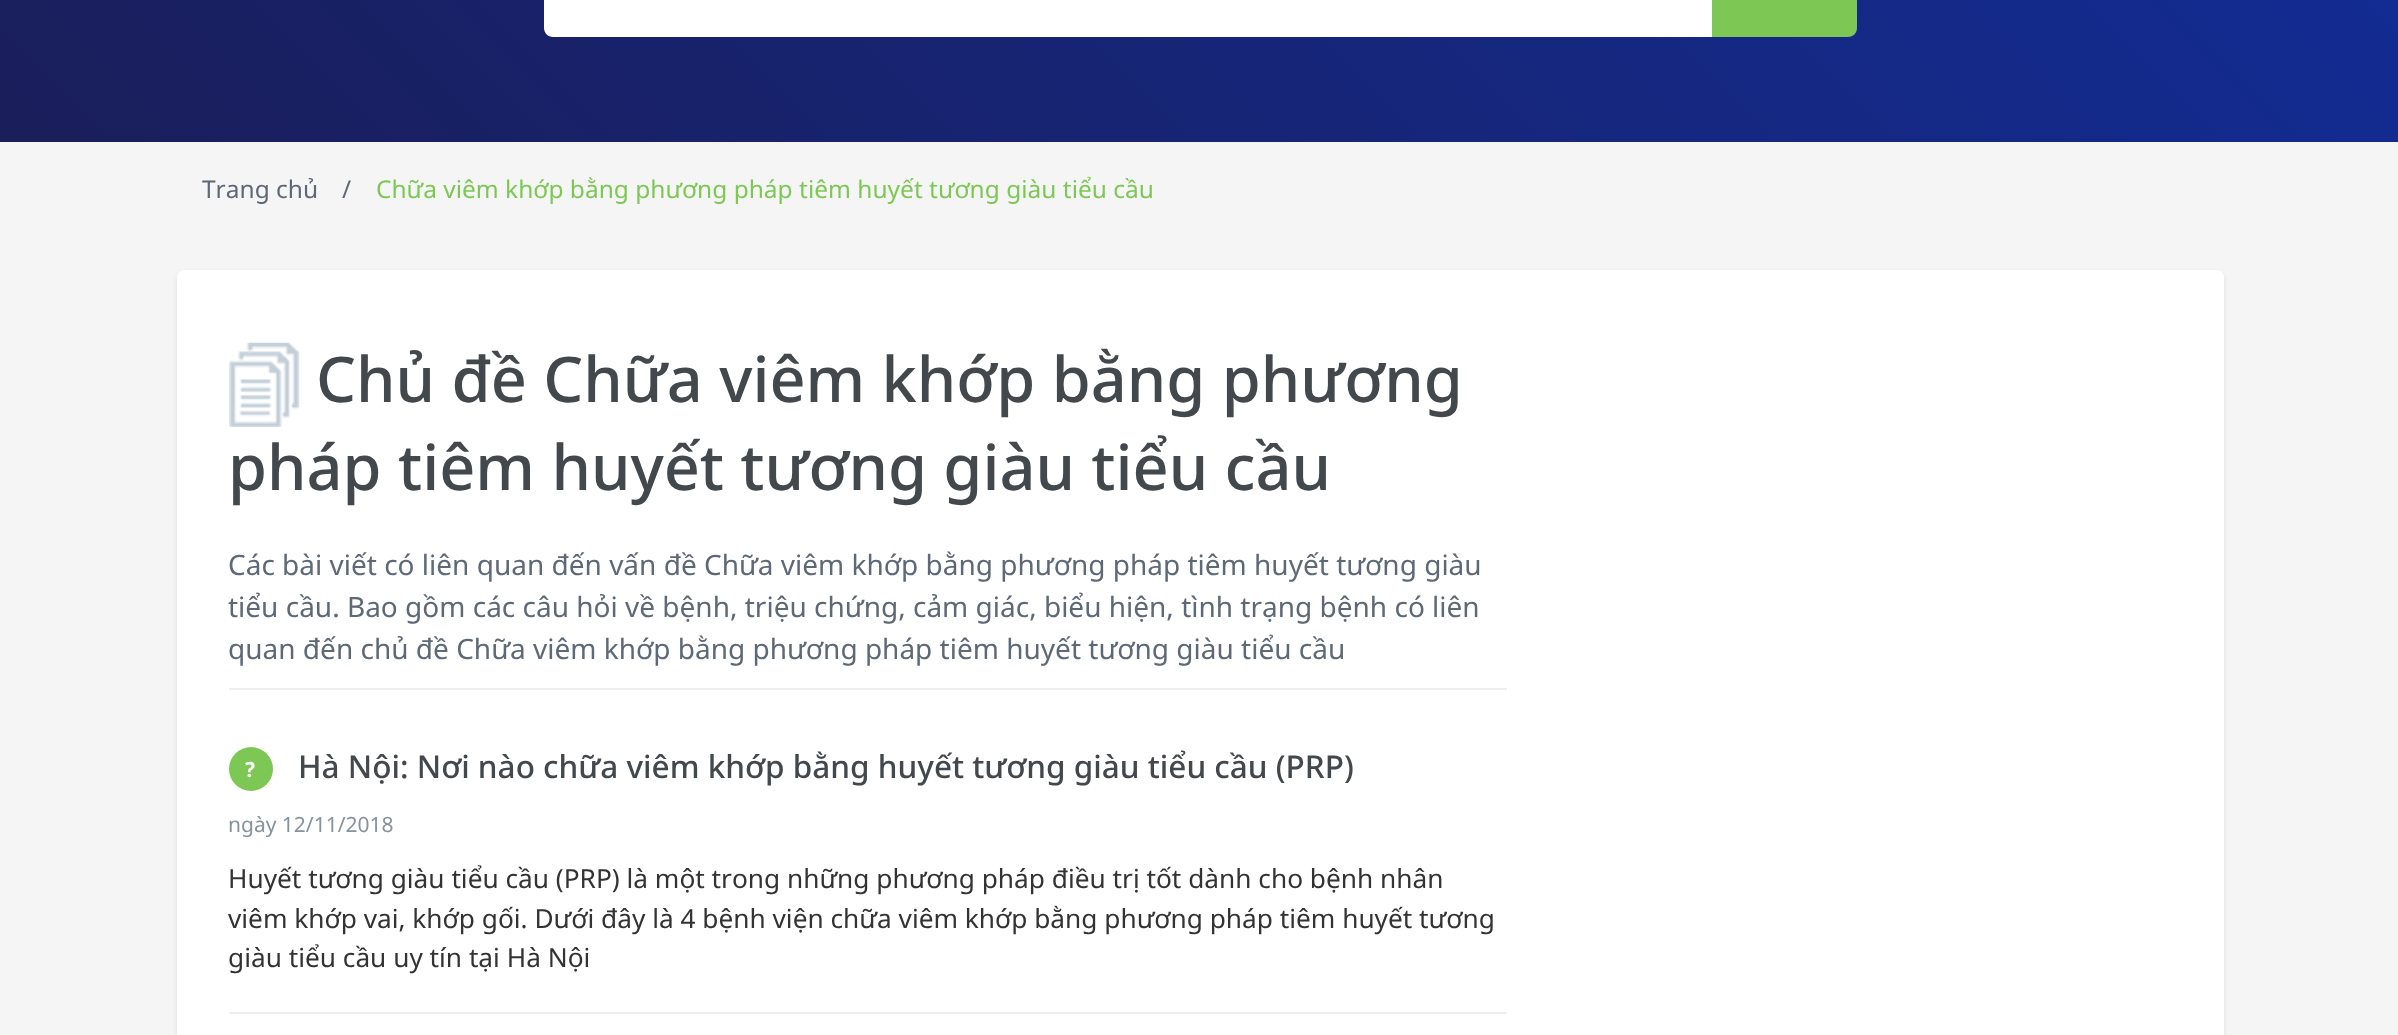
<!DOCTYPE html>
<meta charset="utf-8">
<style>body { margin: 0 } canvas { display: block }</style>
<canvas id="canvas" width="2398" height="1035"></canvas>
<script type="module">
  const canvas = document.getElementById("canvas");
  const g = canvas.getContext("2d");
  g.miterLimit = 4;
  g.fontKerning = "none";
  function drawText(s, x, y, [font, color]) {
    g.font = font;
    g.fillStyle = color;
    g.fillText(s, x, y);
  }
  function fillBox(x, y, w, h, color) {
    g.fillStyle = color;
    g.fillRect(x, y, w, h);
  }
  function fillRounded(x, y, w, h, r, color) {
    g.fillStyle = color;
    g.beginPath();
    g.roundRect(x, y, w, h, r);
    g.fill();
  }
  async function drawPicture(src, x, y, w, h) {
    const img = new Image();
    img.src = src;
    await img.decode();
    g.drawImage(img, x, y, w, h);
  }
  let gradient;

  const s1 = ["24.5px Noto Sans", "#5E6977"];
  const s2 = ["24.5px Noto Sans", "#7DC855"];
  const s3 = ["500 63px Noto Sans", "#43484D"];
  const s4 = ["28px Noto Sans", "#5E6977"];
  const s5 = ["bold 21px Noto Sans", "#FFFFFF"];
  const s6 = ["500 31.5px Noto Sans", "#43484D"];
  const s7 = ["21px Noto Sans", "#86939E"];
  const s8 = ["26.25px Noto Sans", "#333333"];

  fillBox(0, 0, 2398, 1035, "#F5F5F5");
  gradient = g.createLinearGradient(503, 644, 1897, -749);
  gradient.addColorStop(0, "#1A1E5A");
  gradient.addColorStop(1, "#122D98");
  g.fillStyle = gradient;
  g.fillRect(0, 0, 2398, 142);
  g.fillStyle = "#FFFFFF";
  g.beginPath();
  g.moveTo(553, -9);
  g.lineTo(1713, -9);
  g.lineTo(1713, 37);
  g.lineTo(553, 37);
  g.bezierCurveTo(548, 37, 544, 33, 544, 28);
  g.lineTo(544, 0);
  g.bezierCurveTo(544, -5, 548, -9, 553, -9);
  g.closePath();
  g.fill();
  g.fillStyle = "#7DC855";
  g.beginPath();
  g.moveTo(1712, -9);
  g.lineTo(1848, -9);
  g.bezierCurveTo(1853, -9, 1857, -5, 1857, 0);
  g.lineTo(1857, 28);
  g.bezierCurveTo(1857, 33, 1853, 37, 1848, 37);
  g.lineTo(1712, 37);
  g.closePath();
  g.fill();
  drawText("Trang chủ", 202, 198, s1);
  drawText("/", 342, 198, s1);
  drawText("Chữa viêm khớp bằng phương pháp tiêm huyết tương giàu tiểu cầu", 376, 198, s2);
  g.fillStyle = "#DDDDDD";
  g.filter = "blur(2.5px)";
  g.beginPath();
  g.roundRect(177, 273, 2047, 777, 7);
  g.fill();
  g.filter = "none";
  fillRounded(177, 270, 2047, 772, 7, "#FFFFFF");
  await drawPicture("pic1.png", 229, 342, 71, 85);
  drawText("Chủ đề Chữa viêm khớp bằng phương", 316, 402, s3);
  drawText("pháp tiêm huyết tương giàu tiểu cầu", 228, 490, s3);
  fillBox(229, 688, 1278, 2, "#EEEEEE");
  drawText("Các bài viết có liên quan đến vấn đề Chữa viêm khớp bằng phương pháp tiêm huyết tương giàu", 228, 575, s4);
  drawText("tiểu cầu. Bao gồm các câu hỏi về bệnh, triệu chứng, cảm giác, biểu hiện, tình trạng bệnh có liên", 228, 617, s4);
  drawText("quan đến chủ đề Chữa viêm khớp bằng phương pháp tiêm huyết tương giàu tiểu cầu", 228, 659, s4);
  fillBox(229, 1012, 1278, 2, "#EEEEEE");
  g.fillStyle = "#7DC855";
  g.beginPath();
  g.arc(251, 769, 22, 0, Math.PI * 2);
  g.fill();
  drawText("?", 245, 777, s5);
  drawText("Hà Nội: Nơi nào chữa viêm khớp bằng huyết tương giàu tiểu cầu (PRP)", 298, 778, s6);
  drawText("ngày 12/11/2018", 228, 832, s7);
  drawText("Huyết tương giàu tiểu cầu (PRP) là một trong những phương pháp điều trị tốt dành cho bệnh nhân", 228, 888, s8);
  drawText("viêm khớp vai, khớp gối. Dưới đây là 4 bệnh viện chữa viêm khớp bằng phương pháp tiêm huyết tương", 228, 928, s8);
  drawText("giàu tiểu cầu uy tín tại Hà Nội", 228, 967, s8);
</script>
